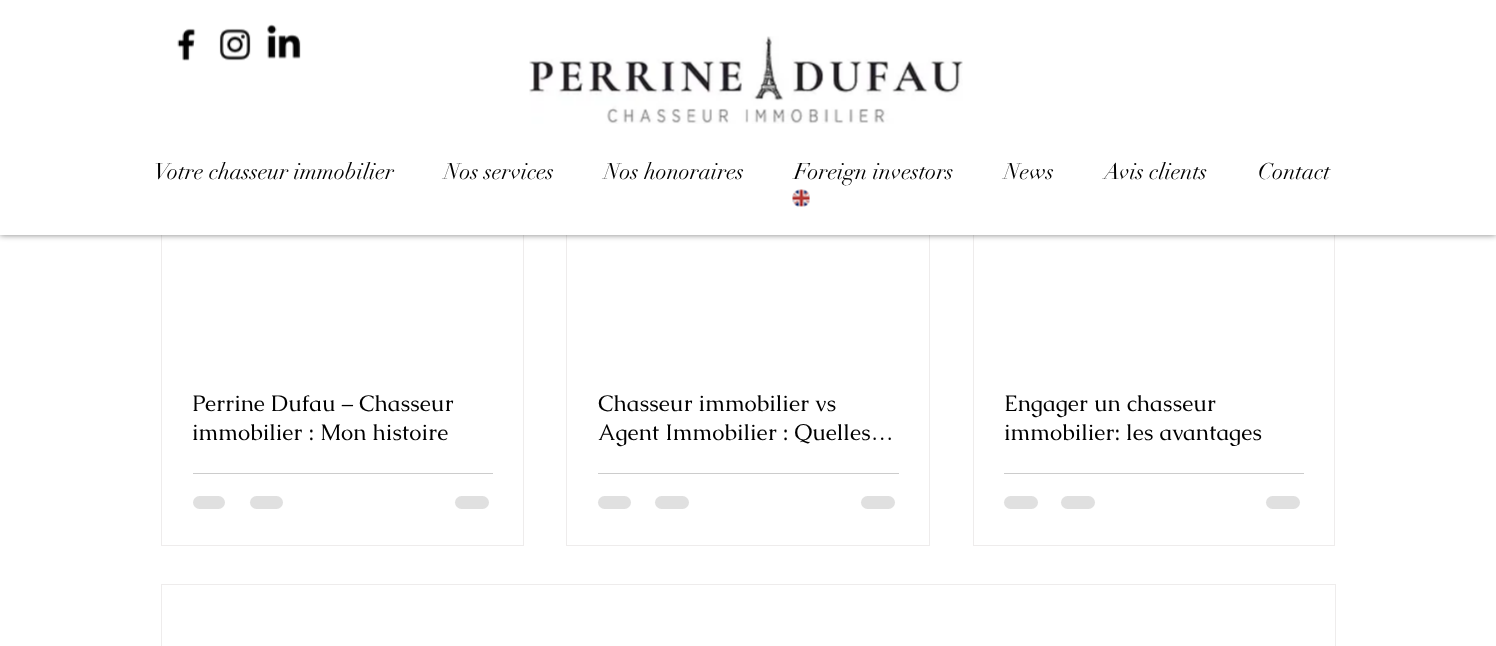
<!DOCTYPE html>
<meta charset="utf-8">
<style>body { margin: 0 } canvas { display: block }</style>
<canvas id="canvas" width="1496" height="646"></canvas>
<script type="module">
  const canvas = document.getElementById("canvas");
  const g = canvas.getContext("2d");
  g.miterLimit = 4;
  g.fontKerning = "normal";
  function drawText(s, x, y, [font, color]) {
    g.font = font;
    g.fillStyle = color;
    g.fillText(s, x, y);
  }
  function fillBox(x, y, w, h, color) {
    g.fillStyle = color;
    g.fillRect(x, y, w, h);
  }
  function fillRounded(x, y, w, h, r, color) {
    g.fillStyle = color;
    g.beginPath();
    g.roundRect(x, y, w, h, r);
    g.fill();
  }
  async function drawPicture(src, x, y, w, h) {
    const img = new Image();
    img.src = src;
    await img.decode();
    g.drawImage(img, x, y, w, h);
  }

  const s1 = ["22.5px didot", "#000000"];
  const s2 = ["22.5px Caudex", "#000000"];

  fillBox(0, 0, 1496, 646, "#FFFFFF");
  g.strokeStyle = "#EEECEC";
  g.strokeRect(161.5, 154.5, 362, 391);
  g.strokeRect(566.5, 154.5, 363, 391);
  g.strokeRect(973.5, 154.5, 361, 391);
  g.fillStyle = "rgba(0, 0, 0, 0.5)";
  g.filter = "blur(3px)";
  g.beginPath();
  g.rect(0, 0, 1496, 235);
  g.fill();
  g.filter = "none";
  fillBox(0, 0, 1496, 235, "#FFFFFF");
  await drawPicture("pic1.png", 177, 28, 19, 33);
  await drawPicture("pic2.png", 219, 28, 32, 33);
  await drawPicture("pic3.png", 267, 24, 34, 35);
  await drawPicture("pic4.png", 529, 36, 434, 88);
  drawText("Votre chasseur immobilier", 154, 179, s1);
  drawText("Nos services", 444, 179, s1);
  drawText("Nos honoraires", 604, 179, s1);
  drawText("Foreign investors", 794, 179, s1);
  drawText("News", 1004, 179, s1);
  drawText("Avis clients", 1104, 179, s1);
  drawText("Contact", 1258, 179, s1);
  await drawPicture("pic5.png", 792, 189, 18, 18);
  drawText("Perrine Dufau – Chasseur", 192, 411, s2);
  drawText("immobilier : Mon histoire", 192, 440, s2);
  fillBox(193, 473, 300, 1, "#CCCCCC");
  fillRounded(193, 496, 32, 13, 6.5, "#E0E0E0");
  fillRounded(250, 496, 33, 13, 6.5, "#E0E0E0");
  fillRounded(455, 496, 34, 13, 6.5, "#E0E0E0");
  drawText("Chasseur immobilier vs", 598, 411, s2);
  drawText("Agent Immobilier : Quelles…", 598, 440, s2);
  fillBox(598, 473, 301, 1, "#CCCCCC");
  fillRounded(598, 496, 33, 13, 6.5, "#E0E0E0");
  fillRounded(655, 496, 34, 13, 6.5, "#E0E0E0");
  fillRounded(861, 496, 34, 13, 6.5, "#E0E0E0");
  drawText("Engager un chasseur", 1004, 411, s2);
  g.save();
  g.beginPath();
  g.rect(1004, 389, 300, 57);
  g.clip();
  drawText("immobilier: les avantages", 1004, 440, s2);
  g.restore();
  fillBox(1004, 473, 300, 1, "#CCCCCC");
  fillRounded(1004, 496, 34, 13, 6.5, "#E0E0E0");
  fillRounded(1061, 496, 34, 13, 6.5, "#E0E0E0");
  fillRounded(1266, 496, 34, 13, 6.5, "#E0E0E0");
  g.strokeRect(161.5, 584.5, 1174, 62);
</script>
